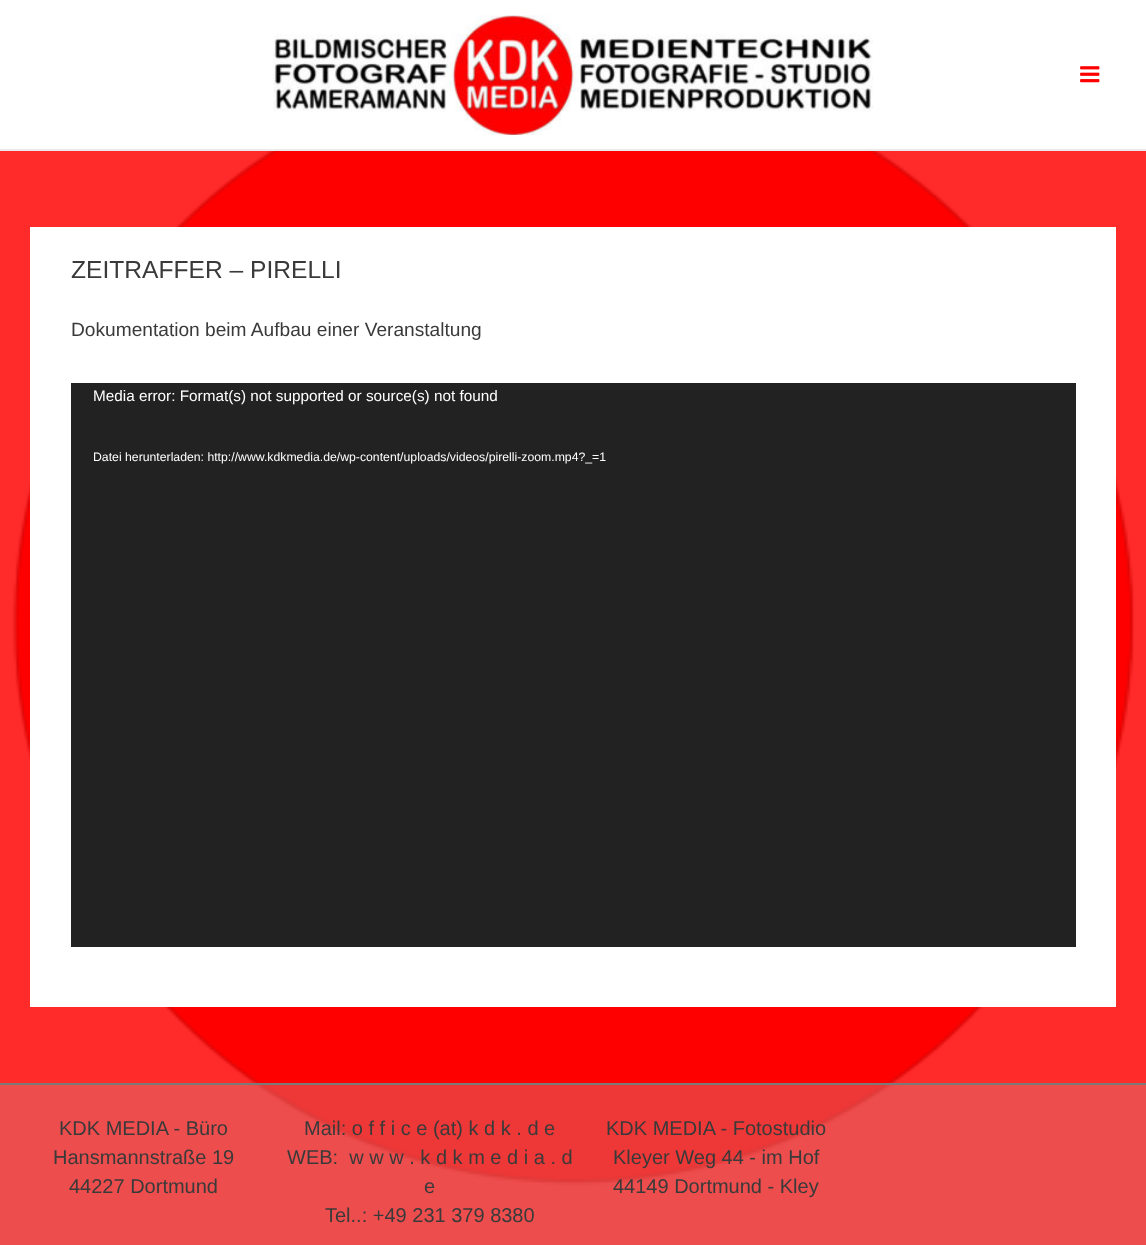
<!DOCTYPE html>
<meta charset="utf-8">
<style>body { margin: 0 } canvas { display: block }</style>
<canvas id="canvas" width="1146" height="1245"></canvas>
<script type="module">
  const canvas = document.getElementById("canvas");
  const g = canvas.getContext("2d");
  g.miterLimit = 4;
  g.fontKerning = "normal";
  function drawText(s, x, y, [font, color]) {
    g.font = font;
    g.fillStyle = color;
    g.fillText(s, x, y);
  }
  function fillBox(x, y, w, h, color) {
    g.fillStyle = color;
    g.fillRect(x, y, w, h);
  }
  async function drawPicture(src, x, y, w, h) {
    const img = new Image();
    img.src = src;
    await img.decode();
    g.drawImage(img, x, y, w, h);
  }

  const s1 = ["24.6px Liberation Sans", "#3A3A3A"];
  const s2 = ["19.15px Liberation Sans", "#3A3A3A"];
  const s3 = ["15.3px Liberation Sans", "#FFFFFF"];
  const s4 = ["12.25px Liberation Sans", "#FFFFFF"];
  const s5 = ["20px Liberation Sans", "#3A3A3A"];

  fillBox(0, 0, 1146, 1245, "#FFFFFF");
  await drawPicture("pic1.png", 0, 151, 1146, 1094);
  fillBox(0, 149, 1146, 2, "#EAEAEA");
  await drawPicture("pic2.png", 273, 15, 600, 120);
  await drawPicture("pic3.png", 1080, 66, 20, 17);
  fillBox(30, 227, 1086, 780, "#FFFFFF");
  drawText("ZEITRAFFER – PIRELLI", 71, 278, s1);
  drawText("Dokumentation beim Aufbau einer Veranstaltung", 71, 336, s2);
  fillBox(71, 383, 1005, 564, "#222222");
  drawText("Media error: Format(s) not supported or source(s) not found", 93, 401, s3);
  drawText("Datei herunterladen: http://www.kdkmedia.de/wp-content/uploads/videos/pirelli-zoom.mp4?_=1", 93, 461, s4);
  fillBox(0, 1085, 1146, 160, "rgba(221, 113, 113, 0.49)");
  fillBox(0, 1083, 1146, 2, "#7A7A7A");
  drawText("KDK MEDIA - Büro", 59, 1135, s5);
  drawText("Hansmannstraße 19", 53, 1164, s5);
  drawText("44227 Dortmund", 69, 1193, s5);
  drawText("Mail: o f f i c e (at) k d k . d e", 304, 1135, s5);
  drawText("WEB:  w w w . k d k m e d i a . d", 287, 1164, s5);
  drawText("e", 424, 1193, s5);
  drawText("Tel..: +49 231 379 8380", 325, 1222, s5);
  drawText("KDK MEDIA - Fotostudio", 606, 1135, s5);
  drawText("Kleyer Weg 44 - im Hof", 613, 1164, s5);
  drawText("44149 Dortmund - Kley", 613, 1193, s5);
</script>
